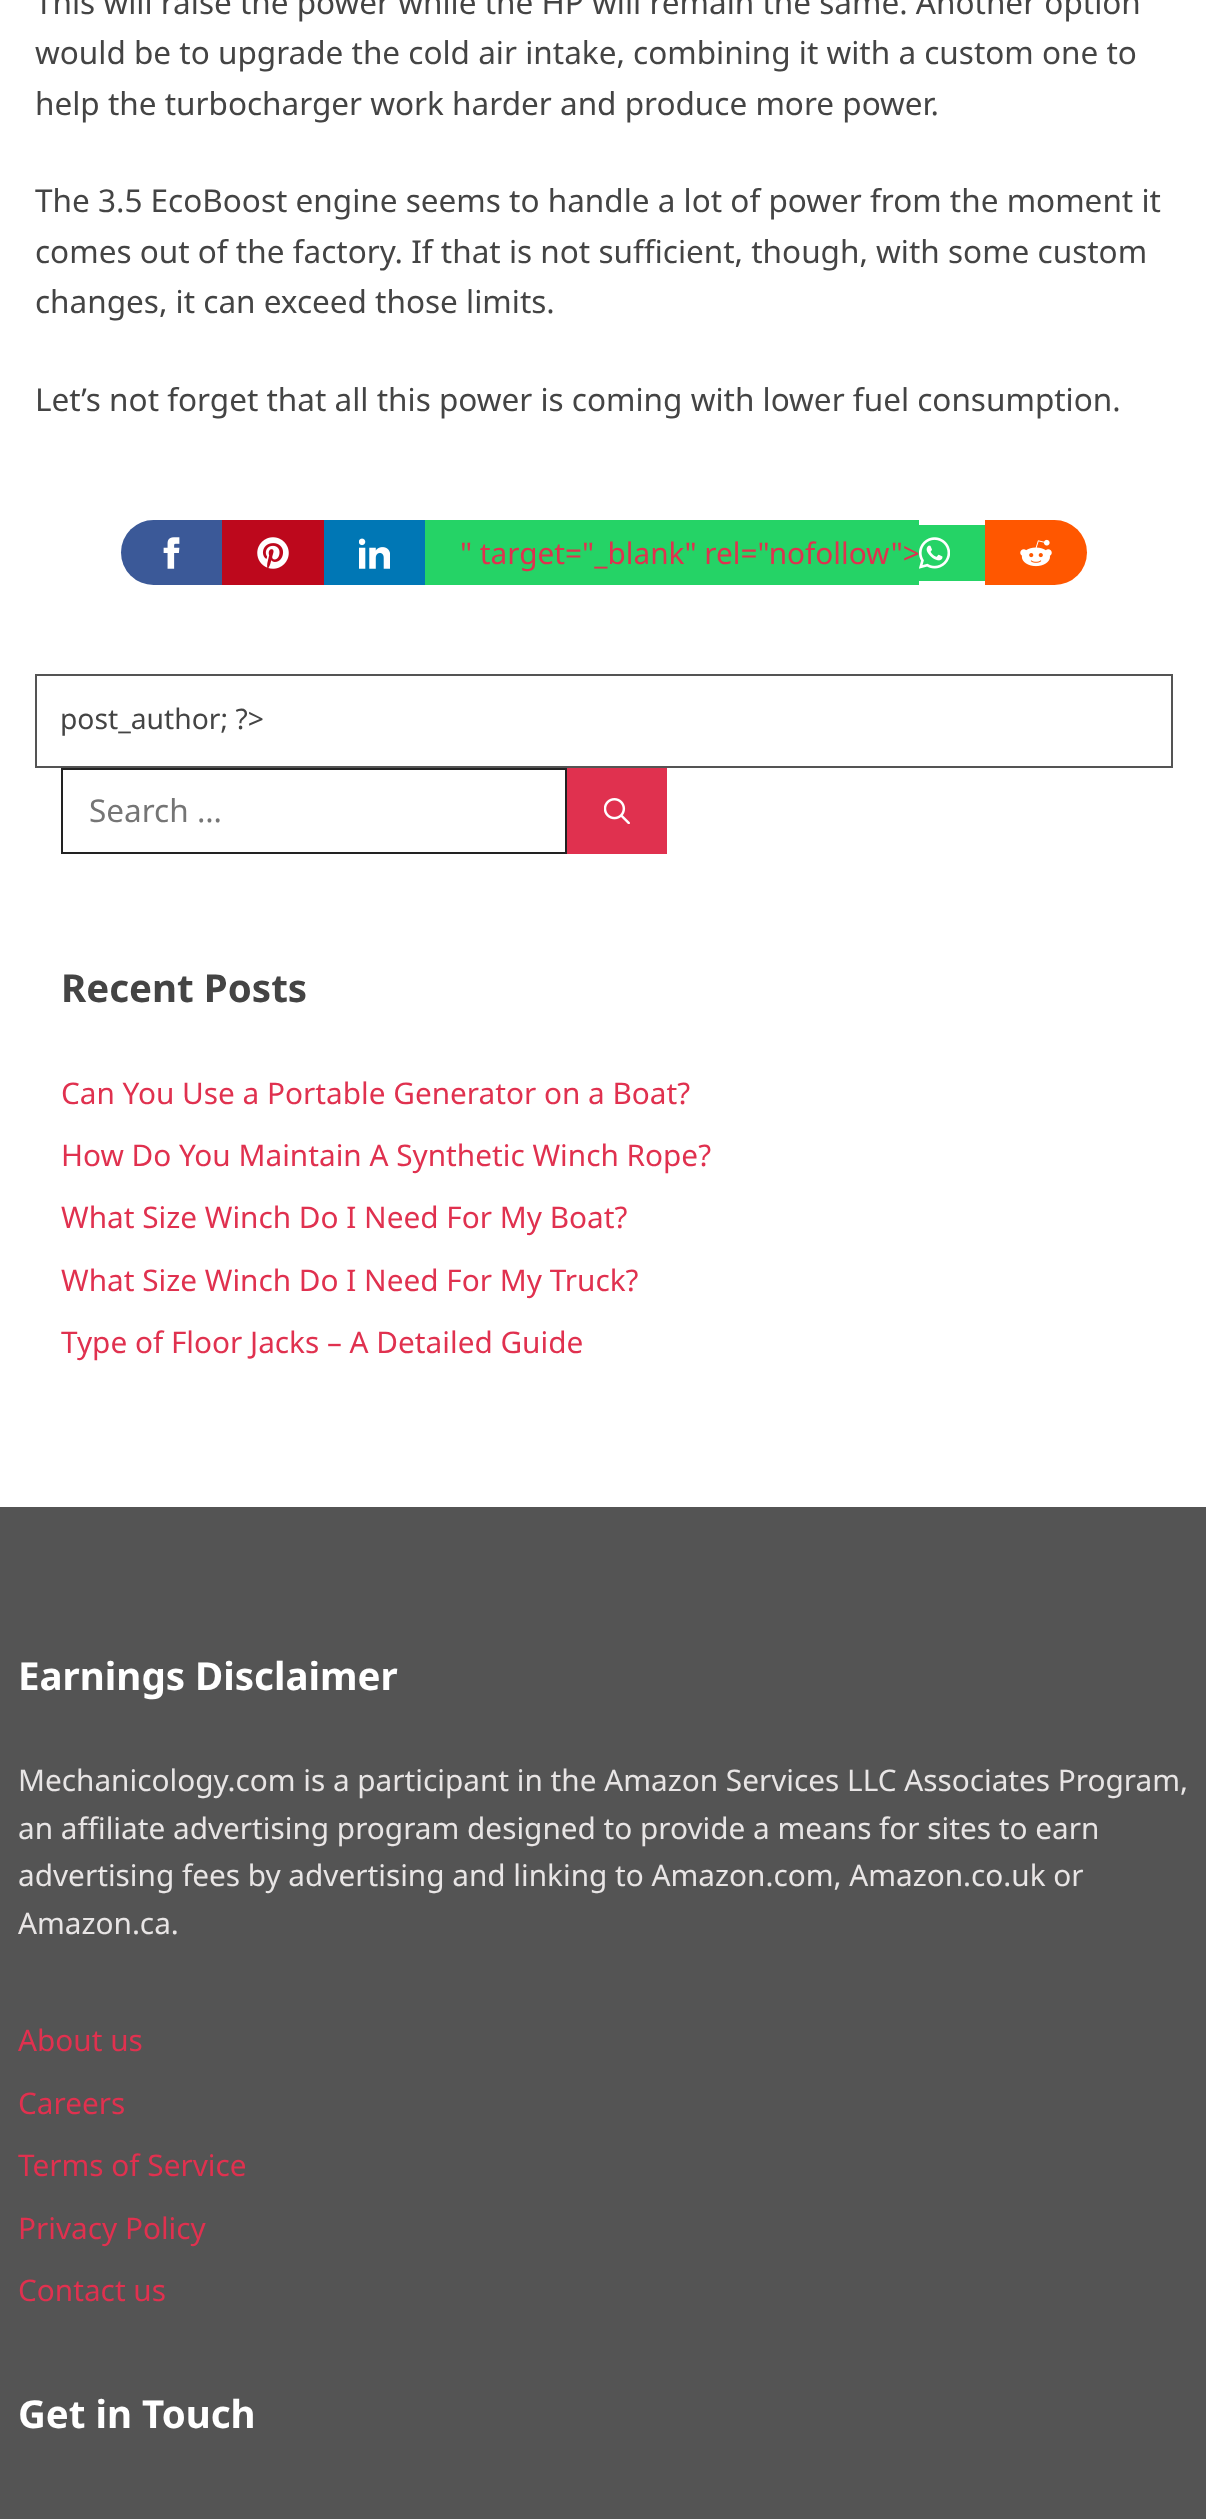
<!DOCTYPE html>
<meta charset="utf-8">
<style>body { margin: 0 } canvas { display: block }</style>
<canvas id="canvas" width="1206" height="2519"></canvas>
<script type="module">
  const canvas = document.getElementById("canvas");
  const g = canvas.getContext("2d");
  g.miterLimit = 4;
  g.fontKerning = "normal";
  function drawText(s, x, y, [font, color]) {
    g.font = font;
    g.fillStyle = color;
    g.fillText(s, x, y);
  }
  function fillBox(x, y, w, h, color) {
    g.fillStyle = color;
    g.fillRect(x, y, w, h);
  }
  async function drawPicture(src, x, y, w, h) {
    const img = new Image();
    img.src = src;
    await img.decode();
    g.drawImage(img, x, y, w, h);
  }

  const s1 = ["31.5px Noto Sans", "#444444"];
  const s2 = ["29.75px Noto Sans", "#E0314F"];
  const s3 = ["28.25px Noto Sans", "#444444"];
  const s4 = ["31.5px Noto Sans", "#757575"];
  const s5 = ["bold 38.5px Noto Sans", "#444444"];
  const s6 = ["bold 38.5px Noto Sans", "#FFFFFF"];
  const s7 = ["29.75px Noto Sans", "#E8E5E5"];

  fillBox(0, 0, 1206, 2519, "#FFFFFF");
  drawText("This will raise the power while the HP will remain the same. Another option", 35, 14, s1);
  drawText("would be to upgrade the cold air intake, combining it with a custom one to", 35, 64, s1);
  drawText("help the turbocharger work harder and produce more power.", 35, 115, s1);
  drawText("The 3.5 EcoBoost engine seems to handle a lot of power from the moment it", 35, 212, s1);
  drawText("comes out of the factory. If that is not sufficient, though, with some custom", 35, 263, s1);
  drawText("changes, it can exceed those limits.", 35, 313, s1);
  drawText("Let’s not forget that all this power is coming with lower fuel consumption.", 35, 411, s1);
  g.fillStyle = "#3B5998";
  g.beginPath();
  g.roundRect(121, 520, 101, 65, [32.5, 0, 0, 32.5]);
  g.fill();
  await drawPicture("pic1.png", 163, 537, 17, 32);
  fillBox(222, 520, 102, 65, "#BD081C");
  await drawPicture("pic2.png", 257, 537, 32, 32);
  fillBox(324, 520, 101, 65, "#0077B5");
  await drawPicture("pic3.png", 359, 538, 31, 31);
  fillBox(425, 520, 494, 65, "#25D366");
  fillBox(919, 525, 66, 56, "#25D366");
  drawText("\" target=\"_blank\" rel=\"nofollow\">", 460, 564, s2);
  await drawPicture("pic4.png", 919, 537, 31, 32);
  g.fillStyle = "#FF5700";
  g.beginPath();
  g.roundRect(985, 520, 102, 65, [0, 32.5, 32.5, 0]);
  g.fill();
  await drawPicture("pic5.png", 1020, 539, 32, 28);
  g.strokeStyle = "#545454";
  g.lineWidth = 2;
  g.strokeRect(36, 675, 1136, 92);
  drawText("post_author; ?>", 60, 729, s3);
  g.strokeStyle = "#222222";
  g.strokeRect(62, 769, 504, 84);
  drawText("Search …", 89, 822, s4);
  fillBox(567, 768, 100, 86, "#E0314F");
  await drawPicture("pic6.png", 604, 798, 26, 26);
  drawText("Recent Posts", 61, 1002, s5);
  drawText("Can You Use a Portable Generator on a Boat?", 61, 1104, s2);
  drawText("How Do You Maintain A Synthetic Winch Rope?", 61, 1166, s2);
  drawText("What Size Winch Do I Need For My Boat?", 61, 1228, s2);
  drawText("What Size Winch Do I Need For My Truck?", 61, 1291, s2);
  drawText("Type of Floor Jacks – A Detailed Guide", 61, 1353, s2);
  fillBox(0, 1507, 1206, 1012, "#545454");
  drawText("Earnings Disclaimer", 18, 1690, s6);
  drawText("Mechanicology.com is a participant in the Amazon Services LLC Associates Program,", 18, 1791, s7);
  drawText("an affiliate advertising program designed to provide a means for sites to earn", 18, 1839, s7);
  drawText("advertising fees by advertising and linking to Amazon.com, Amazon.co.uk or", 18, 1886, s7);
  drawText("Amazon.ca.", 18, 1934, s7);
  drawText("About us", 18, 2051, s2);
  drawText("Careers", 18, 2114, s2);
  drawText("Terms of Service", 18, 2176, s2);
  drawText("Privacy Policy", 18, 2239, s2);
  drawText("Contact us", 18, 2301, s2);
  drawText("Get in Touch", 18, 2428, s6);
</script>
